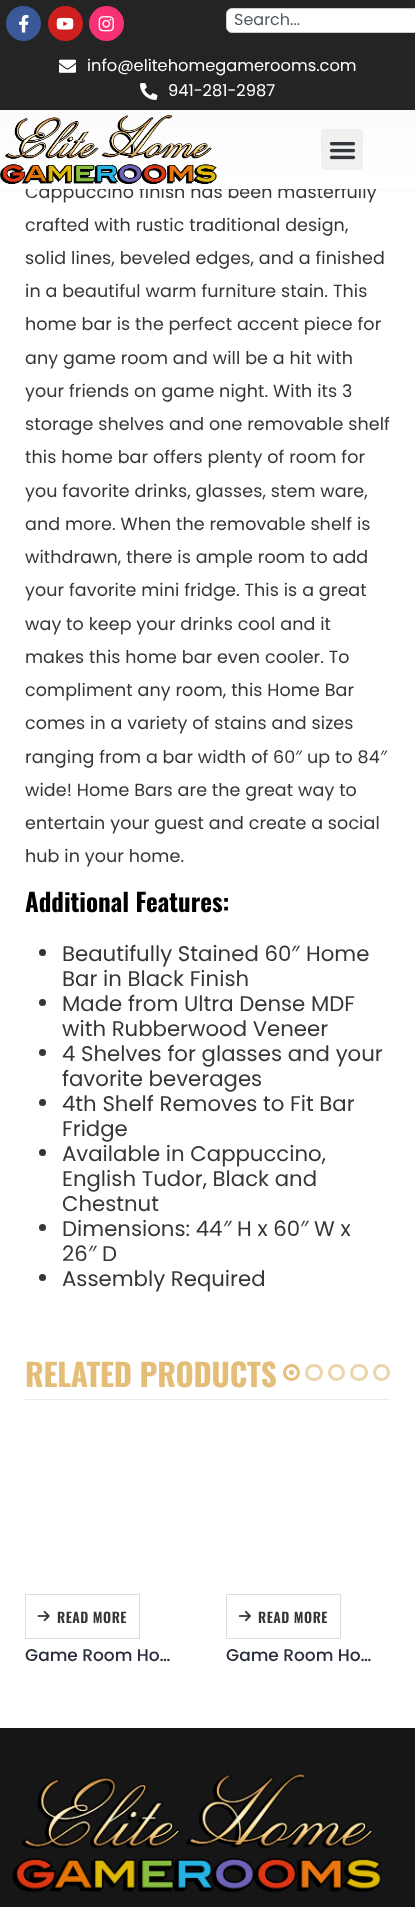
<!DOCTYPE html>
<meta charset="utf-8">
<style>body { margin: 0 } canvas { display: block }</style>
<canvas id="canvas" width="415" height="1907"></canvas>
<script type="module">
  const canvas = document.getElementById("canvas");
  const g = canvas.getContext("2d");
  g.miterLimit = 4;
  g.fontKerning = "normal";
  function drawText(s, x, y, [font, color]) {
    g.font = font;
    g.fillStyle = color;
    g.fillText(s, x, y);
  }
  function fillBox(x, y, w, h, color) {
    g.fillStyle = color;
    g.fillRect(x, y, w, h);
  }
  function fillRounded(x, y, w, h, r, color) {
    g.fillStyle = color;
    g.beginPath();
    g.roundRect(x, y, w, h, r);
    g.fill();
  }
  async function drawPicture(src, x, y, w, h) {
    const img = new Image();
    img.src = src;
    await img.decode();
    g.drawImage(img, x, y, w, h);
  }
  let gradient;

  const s1 = ["17.5px Poppins", "#363636"];
  const s2 = ["16px Poppins", "#515962"];
  const s3 = ["16.25px Poppins", "#FFFFFF"];
  const s4 = ["17.5px Open Sans", "#363636"];
  const s5 = ["bold 25px Oswald", "#000000"];
  const s6 = ["21.25px Poppins", "#363636"];
  const s7 = ["21.25px Open Sans", "#363636"];
  const s8 = ["bold 31.25px Oswald", "#E4BE79"];
  const s9 = ["600 14px Oswald", "#363636"];
  const s10 = ["500 17px Poppins", "#282D3B"];

  fillBox(0, 0, 415, 1907, "#FFFFFF");
  g.fillStyle = "rgba(0, 0, 0, 0.06)";
  g.filter = "blur(2px)";
  g.beginPath();
  g.rect(0, 0, 415, 189);
  g.fill();
  g.filter = "none";
  g.letterSpacing = "0.1px";
  drawText("Cappuccino finish has been masterfully", 25, 198, s1);
  gradient = g.createLinearGradient(208, 0, 208, 189);
  gradient.addColorStop(0, "#F6F6F6");
  gradient.addColorStop(1, "#FFFFFF");
  g.fillStyle = gradient;
  g.fillRect(0, 110, 415, 79);
  fillBox(0, 0, 415, 110, "#242424");
  g.fillStyle = "#3B5998";
  g.beginPath();
  g.arc(23.5, 23.5, 17.5, 0, Math.PI * 2);
  g.fill();
  await drawPicture("pic1.png", 19, 15, 10, 18);
  g.fillStyle = "#CD201F";
  g.beginPath();
  g.arc(65.5, 23.5, 17.5, 0, Math.PI * 2);
  g.fill();
  await drawPicture("pic2.png", 56, 17, 18, 13);
  g.fillStyle = "#F83177";
  g.beginPath();
  g.arc(106.5, 23.5, 17.5, 0, Math.PI * 2);
  g.fill();
  await drawPicture("pic3.png", 98, 16, 16, 16);
  g.fillStyle = "#FFFFFF";
  g.beginPath();
  g.roundRect(226.5, 8.5, 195, 24, 5.5);
  g.fill();
  g.strokeStyle = "#CDCDCD";
  g.stroke();
  g.letterSpacing = "0px";
  drawText("Search...", 234, 25, s2);
  await drawPicture("pic4.png", 59, 59, 17, 14);
  drawText("info@elitehomegamerooms.com", 87, 71, s3);
  await drawPicture("pic5.png", 140, 83, 18, 17);
  drawText("941-281-2987", 168, 96, s3);
  await drawPicture("pic6.png", 0, 115, 217, 69);
  fillRounded(321, 129, 42, 41, 4, "#F0F0F0");
  await drawPicture("pic7.png", 329, 142, 27, 18);
  g.letterSpacing = "0.1px";
  drawText("crafted with rustic traditional design,", 25, 231, s1);
  drawText("solid lines, beveled edges, and a finished", 25, 264, s1);
  drawText("in a beautiful warm furniture stain. This", 25, 297, s1);
  drawText("home bar is the perfect accent piece for", 25, 330, s1);
  drawText("any game room and will be a hit with", 25, 364, s1);
  drawText("your friends on game night. With its 3", 25, 397, s1);
  drawText("storage shelves and one removable shelf", 25, 430, s1);
  drawText("this home bar offers plenty of room for", 25, 463, s1);
  drawText("you favorite drinks, glasses, stem ware,", 25, 497, s1);
  drawText("and more. When the removable shelf is", 25, 530, s1);
  drawText("withdrawn, there is ample room to add", 25, 563, s1);
  drawText("your favorite mini fridge. This is a great", 25, 596, s1);
  drawText("way to keep your drinks cool and it", 25, 630, s1);
  drawText("makes this home bar even cooler. To", 25, 663, s1);
  drawText("compliment any room, this Home Bar", 25, 696, s1);
  drawText("comes in a variety of stains and sizes", 25, 729, s1);
  drawText("ranging from a bar width of 60", 25, 763, s1);
  drawText("″", 295, 763, s4);
  drawText("up to 84", 307, 763, s1);
  drawText("″", 380, 763, s4);
  drawText("wide! Home Bars are the great way to", 25, 796, s1);
  drawText("entertain your guest and create a social", 25, 829, s1);
  drawText("hub in your home.", 25, 862, s1);
  g.letterSpacing = "0px";
  drawText("Additional Features:", 25, 912, s5);
  g.fillStyle = "#363636";
  g.beginPath();
  g.arc(42.5, 952.5, 3.5, 0, Math.PI * 2);
  g.fill();
  drawText("Beautifully Stained 60", 62, 961, s6);
  drawText("″", 291, 961, s7);
  drawText("Home", 306, 961, s6);
  drawText("Bar in Black Finish", 62, 986, s6);
  g.beginPath();
  g.arc(42.5, 1002.5, 3.5, 0, Math.PI * 2);
  g.fill();
  drawText("Made from Ultra Dense MDF", 62, 1011, s6);
  drawText("with Rubberwood Veneer", 62, 1036, s6);
  g.beginPath();
  g.arc(42.5, 1052.5, 3.5, 0, Math.PI * 2);
  g.fill();
  drawText("4 Shelves for glasses and your", 62, 1061, s6);
  drawText("favorite beverages", 62, 1086, s6);
  g.beginPath();
  g.arc(42.5, 1102.5, 3.5, 0, Math.PI * 2);
  g.fill();
  drawText("4th Shelf Removes to Fit Bar", 62, 1111, s6);
  drawText("Fridge", 62, 1136, s6);
  g.beginPath();
  g.arc(42.5, 1152.5, 3.5, 0, Math.PI * 2);
  g.fill();
  drawText("Available in Cappuccino,", 62, 1161, s6);
  drawText("English Tudor, Black and", 62, 1186, s6);
  drawText("Chestnut", 62, 1211, s6);
  g.beginPath();
  g.arc(42.5, 1227.5, 3.5, 0, Math.PI * 2);
  g.fill();
  drawText("Dimensions: 44", 62, 1236, s6);
  drawText("″", 223, 1236, s7);
  drawText("H x 60", 237, 1236, s6);
  drawText("″", 300, 1236, s7);
  drawText("W x", 314, 1236, s6);
  drawText("26", 62, 1261, s6);
  drawText("″", 88, 1261, s7);
  drawText("D", 102, 1261, s6);
  g.beginPath();
  g.arc(42.5, 1277.5, 3.5, 0, Math.PI * 2);
  g.fill();
  drawText("Assembly Required", 62, 1286, s6);
  fillBox(25, 1399, 365, 1, "#EBEBEB");
  g.letterSpacing = "-0.25px";
  drawText("RELATED PRODUCTS", 25, 1387, s8);
  g.beginPath();
  g.arc(291.5, 1372.5, 7, 0, Math.PI * 2);
  g.strokeStyle = "#E4BE79";
  g.lineWidth = 3;
  g.stroke();
  g.beginPath();
  g.arc(291.5, 1372.5, 2.5, 0, Math.PI * 2);
  g.fill();
  g.beginPath();
  g.roundRect(306.5, 1365.5, 15, 14, 7);
  g.strokeStyle = "#EBD4AA";
  g.stroke();
  g.beginPath();
  g.arc(336.5, 1372.5, 7, 0, Math.PI * 2);
  g.stroke();
  g.beginPath();
  g.roundRect(351.5, 1365.5, 15, 14, 7);
  g.stroke();
  g.beginPath();
  g.arc(381.5, 1372.5, 7, 0, Math.PI * 2);
  g.stroke();
  g.strokeStyle = "#DDDDDD";
  g.lineWidth = 1;
  g.strokeRect(25.5, 1594.5, 114, 44);
  await drawPicture("pic8.png", 37, 1610, 13, 12);
  g.letterSpacing = "0.5px";
  drawText("READ MORE", 57, 1623, s9);
  g.letterSpacing = "0px";
  drawText("Game Room Ho…", 25, 1661, s10);
  g.strokeRect(226.5, 1594.5, 114, 44);
  await drawPicture("pic9.png", 238, 1610, 13, 12);
  g.letterSpacing = "0.5px";
  drawText("READ MORE", 258, 1623, s9);
  g.letterSpacing = "0px";
  drawText("Game Room Ho…", 226, 1661, s10);
  fillBox(0, 1728, 415, 179, "#161616");
  await drawPicture("pic10.png", 12, 1773, 370, 120);
</script>
